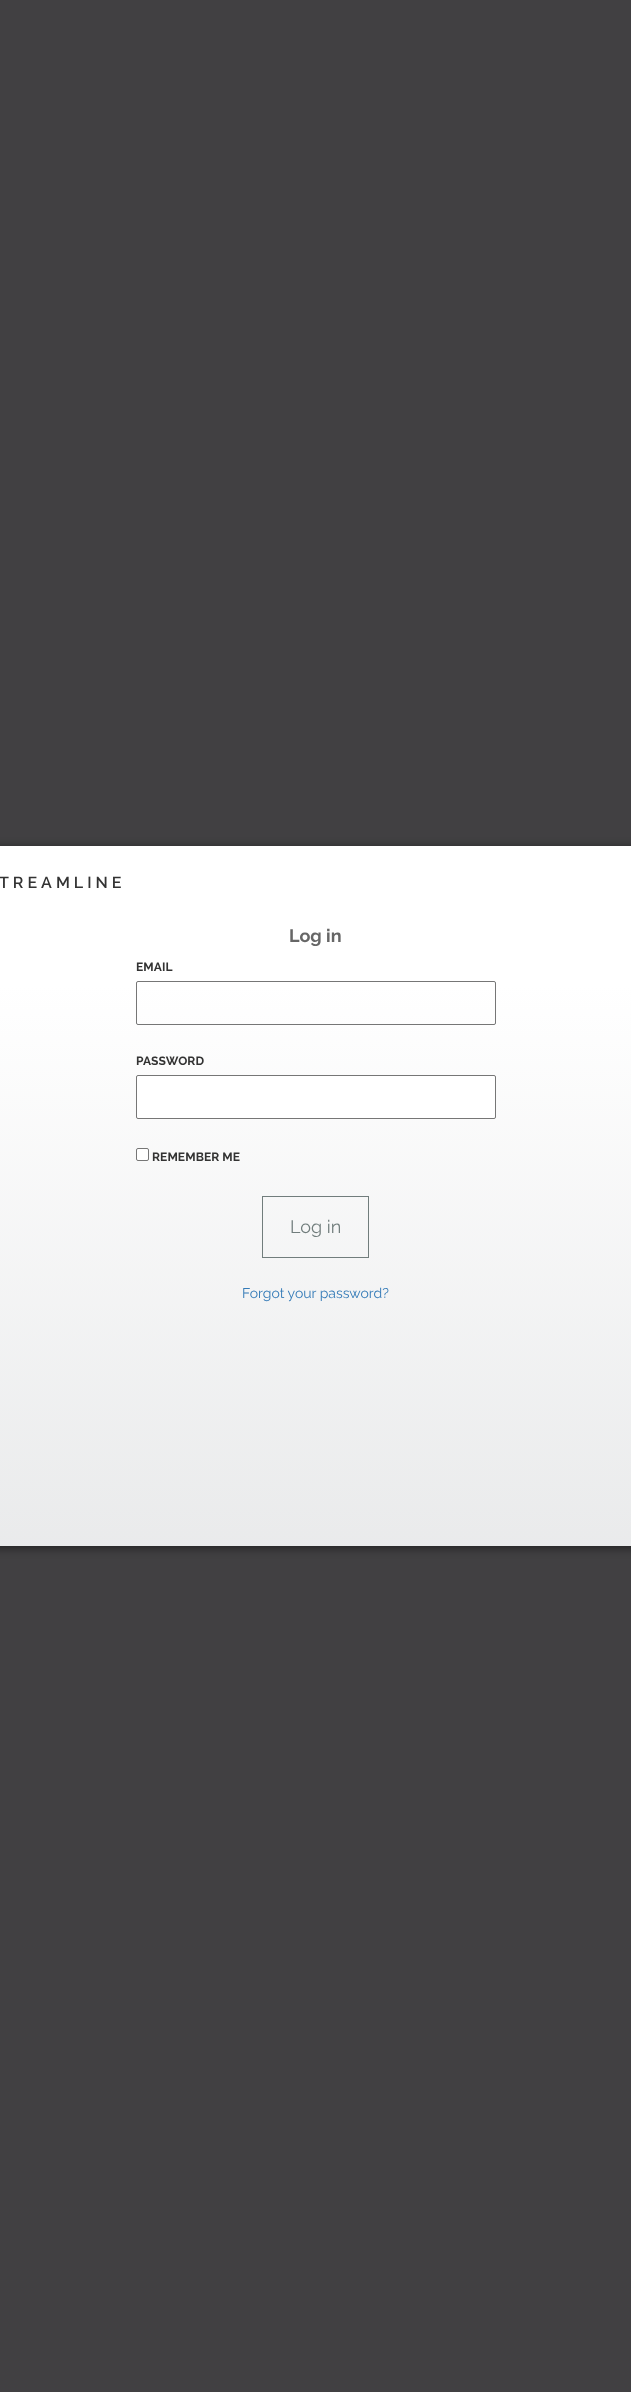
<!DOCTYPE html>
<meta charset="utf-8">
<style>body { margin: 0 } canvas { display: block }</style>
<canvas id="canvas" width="631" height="2392"></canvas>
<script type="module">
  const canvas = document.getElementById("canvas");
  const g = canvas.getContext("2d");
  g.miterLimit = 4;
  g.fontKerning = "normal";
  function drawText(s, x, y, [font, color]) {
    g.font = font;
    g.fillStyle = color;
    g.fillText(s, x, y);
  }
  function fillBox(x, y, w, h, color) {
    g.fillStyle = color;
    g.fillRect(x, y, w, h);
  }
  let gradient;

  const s1 = ["600 16px Raleway", "#333333"];
  const s2 = ["bold 18px Raleway", "#666666"];
  const s3 = ["bold 12px Raleway", "#333333"];
  const s4 = ["18px Raleway", "#717D7C"];
  const s5 = ["14px Raleway", "#337AB7"];

  fillBox(0, 0, 631, 2392, "#414042");
  g.fillStyle = "rgba(0, 0, 0, 0.5)";
  g.filter = "blur(5px)";
  g.beginPath();
  g.roundRect(-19, 848, 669, 700, 4);
  g.fill();
  g.filter = "none";
  gradient = g.createLinearGradient(316, 846, 316, 1616);
  gradient.addColorStop(0.18, "#FFFFFF");
  gradient.addColorStop(1, "#E7E8E9");
  g.fillStyle = gradient;
  g.fillRect(0, 846, 631, 700);
  g.letterSpacing = "4px";
  drawText("TREAMLINE", -1, 888, s1);
  g.letterSpacing = "0px";
  drawText("Log in", 289, 942, s2);
  g.letterSpacing = "0.1px";
  drawText("EMAIL", 136, 971, s3);
  g.beginPath();
  g.roundRect(136.5, 981.5, 359, 43, 1.5);
  g.strokeStyle = "#767676";
  g.stroke();
  drawText("PASSWORD", 136, 1065, s3);
  g.fillStyle = "#FFFFFF";
  g.beginPath();
  g.roundRect(136.5, 1075.5, 359, 43, 1.5);
  g.fill();
  g.stroke();
  g.beginPath();
  g.roundRect(136.5, 1148.5, 12, 12, 1.5);
  g.fill();
  g.stroke();
  drawText("REMEMBER ME", 152, 1161, s3);
  g.strokeStyle = "#717D7C";
  g.strokeRect(262.5, 1196.5, 106, 61);
  g.letterSpacing = "0px";
  drawText("Log in", 290, 1233, s4);
  drawText("Forgot your password?", 242, 1298, s5);
</script>
